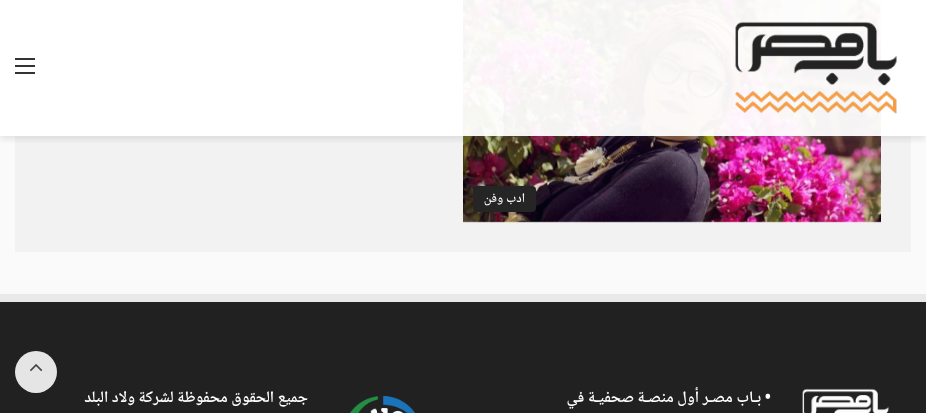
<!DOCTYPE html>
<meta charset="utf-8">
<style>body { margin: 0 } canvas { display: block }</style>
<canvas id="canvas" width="926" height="413"></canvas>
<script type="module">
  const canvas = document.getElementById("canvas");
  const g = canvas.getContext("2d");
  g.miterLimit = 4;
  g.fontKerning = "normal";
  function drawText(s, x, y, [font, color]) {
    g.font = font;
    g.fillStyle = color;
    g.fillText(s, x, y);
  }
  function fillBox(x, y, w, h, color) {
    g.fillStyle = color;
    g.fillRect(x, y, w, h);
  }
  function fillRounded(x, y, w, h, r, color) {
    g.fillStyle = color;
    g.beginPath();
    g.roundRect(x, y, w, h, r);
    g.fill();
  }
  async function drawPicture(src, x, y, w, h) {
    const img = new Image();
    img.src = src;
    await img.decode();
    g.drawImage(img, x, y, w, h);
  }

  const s1 = ["500 13px Noto Naskh Arabic", "#FFFFFF"];
  const s2 = ["600 16px Noto Naskh Arabic", "#FFFFFF"];

  fillBox(0, 0, 926, 413, "#FAFAFA");
  fillBox(15, 0, 896, 252, "#F2F2F2");
  await drawPicture("pic2.png", 463, 0, 418, 223);
  g.save();
  g.beginPath();
  g.rect(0, 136, 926, 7);
  g.clip();
  g.fillStyle = "rgba(99, 99, 99, 0.2)";
  g.filter = "blur(4px)";
  g.beginPath();
  g.rect(0, 2, 926, 136);
  g.fill();
  g.filter = "none";
  g.restore();
  fillBox(0, 0, 926, 136, "rgba(255, 255, 255, 0.95)");
  await drawPicture("pic1.png", 735, 21, 162, 93);
  fillBox(15, 65, 20, 2, "#333333");
  fillBox(15, 58, 20, 2, "#333333");
  fillBox(15, 72, 20, 2, "#333333");
  fillRounded(473, 186, 63, 26, 4, "#252525");
  g.direction = "rtl";
  drawText("ادب وفن", 525, 202, s1);
  fillBox(0, 310, 926, 103, "#212121");
  g.fillStyle = "#E5E5E5";
  g.beginPath();
  g.arc(36, 372, 21, 0, Math.PI * 2);
  g.fill();
  await drawPicture("pic3.png", 30, 364, 13, 8);
  fillBox(0, 294, 926, 8, "#E9E9E9");
  fillBox(0, 302, 926, 8, "#232323");
  await drawPicture("pic4.png", 802, 388, 87, 25);
  drawText("• بـاب مصـر", 771, 402, s2);
  drawText("أول منصـة صحفيـة في", 699, 402, s2);
  await drawPicture("pic5.png", 349, 395, 67, 18);
  drawText("جميع الحقوق محفوظة لشركة ولاد البلد", 308, 402, s2);
</script>
